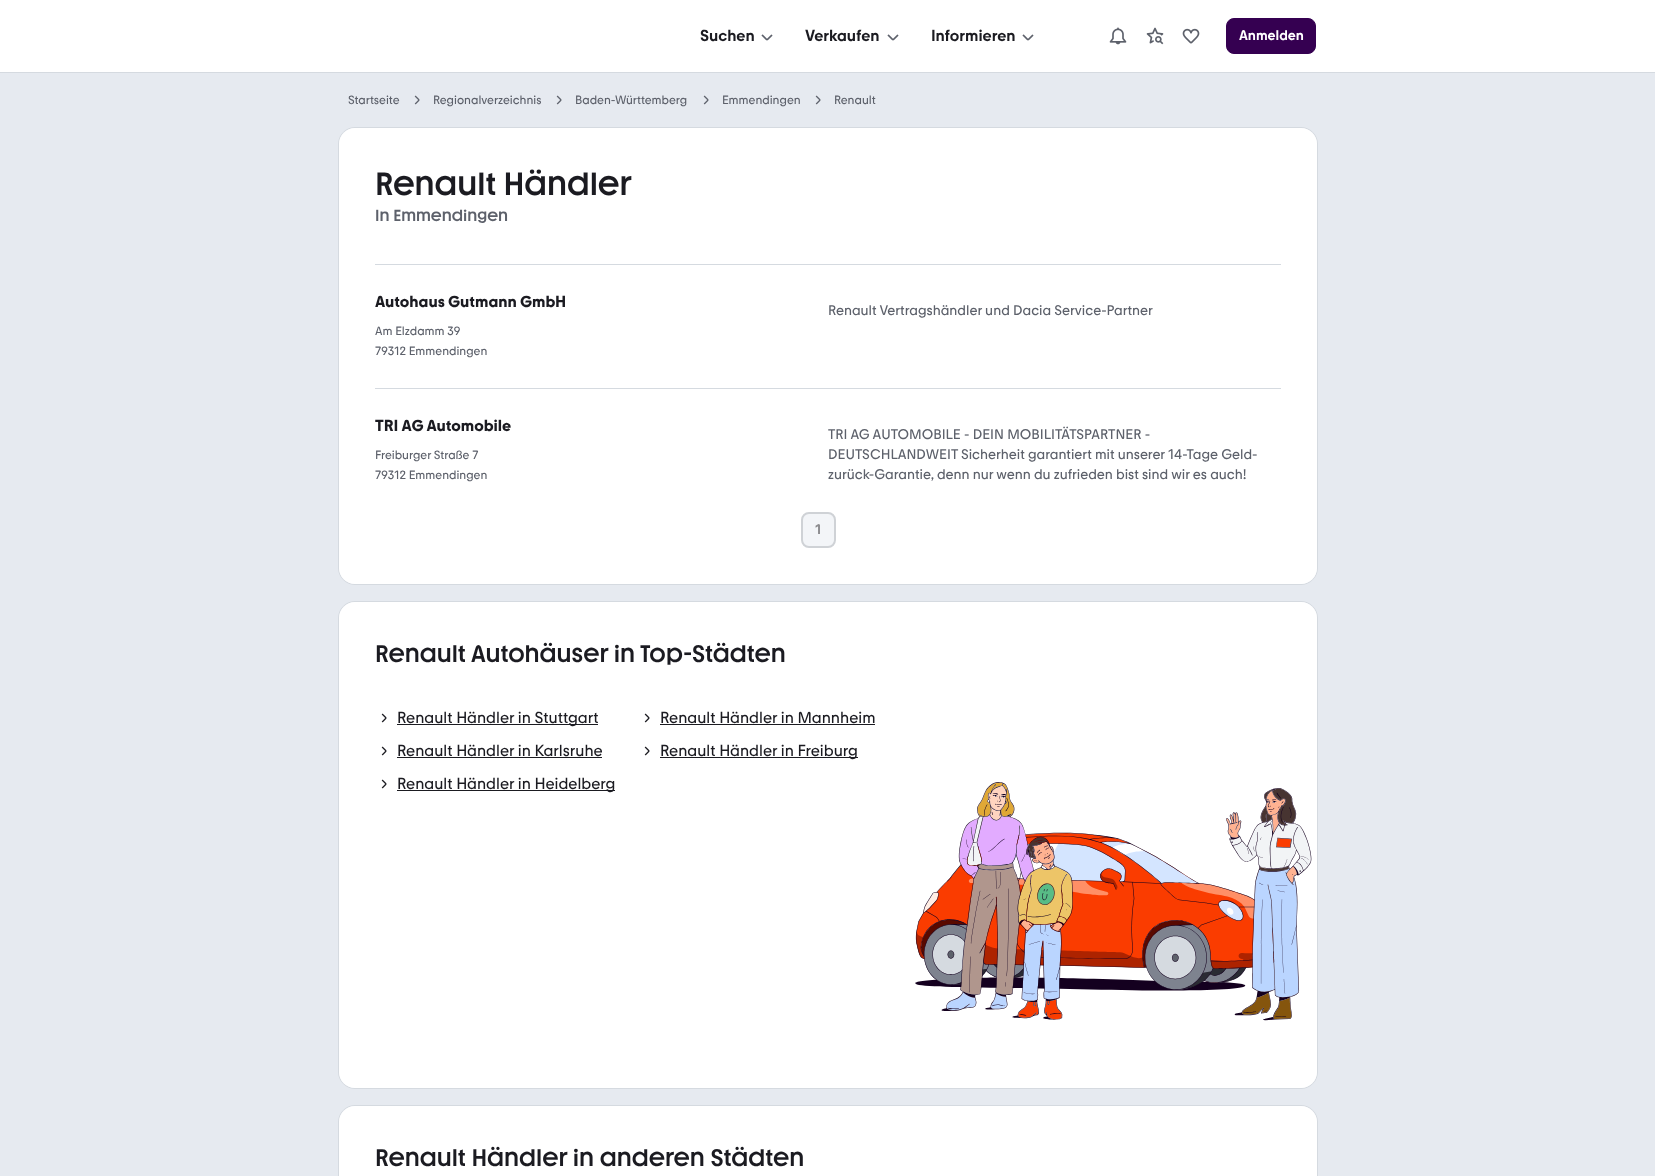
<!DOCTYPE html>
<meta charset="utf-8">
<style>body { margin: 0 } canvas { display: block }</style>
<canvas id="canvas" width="1655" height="1176"></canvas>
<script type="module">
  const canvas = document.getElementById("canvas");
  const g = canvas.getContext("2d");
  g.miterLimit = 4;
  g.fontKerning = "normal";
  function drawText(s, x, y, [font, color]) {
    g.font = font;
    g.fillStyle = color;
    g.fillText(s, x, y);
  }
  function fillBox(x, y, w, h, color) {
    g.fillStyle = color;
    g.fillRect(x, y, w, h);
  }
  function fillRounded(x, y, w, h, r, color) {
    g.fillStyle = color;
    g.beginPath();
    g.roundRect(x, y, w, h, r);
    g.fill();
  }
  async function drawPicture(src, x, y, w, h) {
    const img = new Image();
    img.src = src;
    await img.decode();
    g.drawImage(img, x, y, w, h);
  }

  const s1 = ["500 16px 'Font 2'", "#1B1B21"];
  const s2 = ["500 14px 'Font 2'", "#FFFFFF"];
  const s3 = ["12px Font", "#5D616B"];
  const s4 = ["500 32px Font", "#1B1B21"];
  const s5 = ["500 16px Font", "#5D616B"];
  const s6 = ["bold 16px Font", "#1B1B21"];
  const s7 = ["14px Font", "#5D616B"];
  const s8 = ["500 14px 'Font 2'", "#8D8D90"];
  const s9 = ["500 24px Font", "#1B1B21"];
  const s10 = ["16px Font", "#1B1B21"];

  fillBox(0, 0, 1655, 1176, "#E6EAF0");
  g.strokeStyle = "#D5DAE0";
  g.strokeRect(-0.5, -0.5, 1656, 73);
  fillBox(0, 0, 1655, 72, "#FFFFFF");
  drawText("Suchen", 700, 41, s1);
  await drawPicture("pic1.png", 761, 34, 12, 7);
  drawText("Verkaufen", 805, 41, s1);
  await drawPicture("pic1.png", 887, 34, 12, 7);
  drawText("Informieren", 931, 41, s1);
  await drawPicture("pic1.png", 1022, 34, 12, 7);
  await drawPicture("pic2.png", 1109, 27, 18, 18);
  await drawPicture("pic3.png", 1146, 27, 18, 18);
  await drawPicture("pic4.png", 1182, 28, 18, 16);
  g.fillStyle = "#350051";
  g.beginPath();
  g.roundRect(1226.5, 18.5, 89, 35, 7.5);
  g.fill();
  g.strokeStyle = "#350051";
  g.stroke();
  drawText("Anmelden", 1239, 40, s2);
  drawText("Startseite", 348, 104, s3);
  await drawPicture("pic5.png", 414, 95, 6, 10);
  drawText("Regionalverzeichnis", 433, 104, s3);
  await drawPicture("pic5.png", 556, 95, 6, 10);
  drawText("Baden-Württemberg", 575, 104, s3);
  await drawPicture("pic5.png", 703, 95, 6, 10);
  drawText("Emmendingen", 722, 104, s3);
  await drawPicture("pic5.png", 815, 95, 6, 10);
  drawText("Renault", 834, 104, s3);
  g.beginPath();
  g.roundRect(338.5, 127.5, 979, 457, 16.5);
  g.strokeStyle = "#D5DAE0";
  g.stroke();
  fillRounded(339, 128, 978, 456, 16, "#FFFFFF");
  drawText("Renault Händler", 375, 195, s4);
  drawText("In Emmendingen", 375, 221, s5);
  fillBox(375, 264, 906, 1, "#D5DAE0");
  drawText("Autohaus Gutmann GmbH", 375, 307, s6);
  drawText("Am Elzdamm 39", 375, 335, s3);
  drawText("79312 Emmendingen", 375, 355, s3);
  drawText("Renault Vertragshändler und Dacia Service-Partner", 828, 315, s7);
  fillBox(375, 388, 906, 1, "#D5DAE0");
  drawText("TRI AG Automobile", 375, 431, s6);
  drawText("Freiburger Straße 7", 375, 459, s3);
  drawText("79312 Emmendingen", 375, 479, s3);
  drawText("TRI AG AUTOMOBILE - DEIN MOBILITÄTSPARTNER -", 828, 439, s7);
  drawText("DEUTSCHLANDWEIT Sicherheit garantiert mit unserer 14-Tage Geld-", 828, 459, s7);
  drawText("zurück-Garantie, denn nur wenn du zufrieden bist sind wir es auch!", 828, 479, s7);
  g.fillStyle = "#F3F5F8";
  g.beginPath();
  g.roundRect(802, 513, 33, 34, 7);
  g.fill();
  g.strokeStyle = "#CFD2D6";
  g.lineWidth = 2;
  g.stroke();
  drawText("1", 815, 534, s8);
  g.beginPath();
  g.roundRect(338.5, 601.5, 979, 487, 16.5);
  g.strokeStyle = "#D5DAE0";
  g.lineWidth = 1;
  g.stroke();
  fillRounded(339, 602, 978, 486, 16, "#FFFFFF");
  drawText("Renault Autohäuser in Top-Städten", 375, 662, s9);
  await drawPicture("pic6.png", 381, 713, 6, 10);
  fillBox(397, 724, 201, 1, "#1B1B21");
  drawText("Renault Händler in Stuttgart", 397, 723, s10);
  await drawPicture("pic6.png", 644, 713, 6, 10);
  drawText("Renault Händler in Mannheim", 660, 723, s10);
  fillBox(660, 724, 215, 1, "#1B1B21");
  await drawPicture("pic6.png", 381, 746, 6, 10);
  drawText("Renault Händler in Karlsruhe", 397, 756, s10);
  fillBox(397, 757, 205, 1, "#1B1B21");
  await drawPicture("pic6.png", 644, 746, 6, 10);
  fillBox(660, 757, 198, 1, "#1B1B21");
  drawText("Renault Händler in Freiburg", 660, 756, s10);
  await drawPicture("pic6.png", 381, 779, 6, 10);
  fillBox(397, 790, 218, 1, "#1B1B21");
  drawText("Renault Händler in Heidelberg", 397, 789, s10);
  await drawPicture("pic7.png", 915, 782, 397, 239);
  g.beginPath();
  g.roundRect(338.5, 1105.5, 979, 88, 16.5);
  g.stroke();
  fillRounded(339, 1106, 978, 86, 16, "#FFFFFF");
  drawText("Renault Händler in anderen Städten", 375, 1166, s9);
</script>
